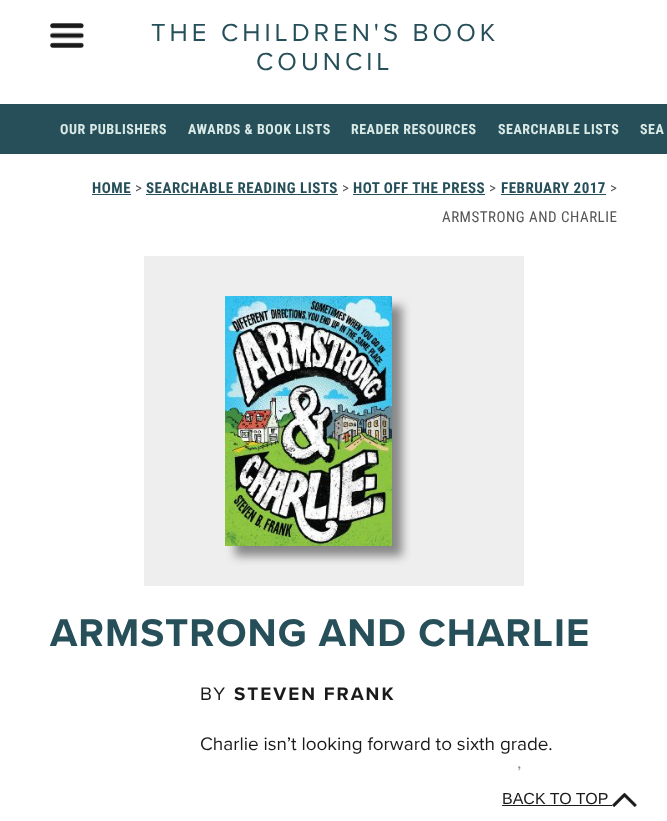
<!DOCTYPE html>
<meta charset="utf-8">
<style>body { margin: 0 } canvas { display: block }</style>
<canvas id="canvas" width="667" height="821"></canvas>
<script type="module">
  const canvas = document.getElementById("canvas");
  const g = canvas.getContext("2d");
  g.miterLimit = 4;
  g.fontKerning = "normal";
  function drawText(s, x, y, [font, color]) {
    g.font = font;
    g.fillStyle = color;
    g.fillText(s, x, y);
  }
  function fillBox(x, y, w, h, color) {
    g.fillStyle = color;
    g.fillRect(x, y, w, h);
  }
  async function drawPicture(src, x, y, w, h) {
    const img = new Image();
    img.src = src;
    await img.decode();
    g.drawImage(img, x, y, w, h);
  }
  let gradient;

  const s1 = ["25.6px Proxima Nova", "#264F59"];
  const s2 = ["bold 14px Roboto Condensed", "#D8E9E6"];
  const s3 = ["bold 15px Roboto Condensed", "#264F59"];
  const s4 = ["15px Roboto Condensed", "#555555"];
  const s5 = ["bold 40px Proxima Nova", "#264F59"];
  const s6 = ["18.9px Proxima Nova", "#1A1A1A"];
  const s7 = ["bold 18.9px Proxima Nova", "#1A1A1A"];
  const s8 = ["16px Liberation Sans", "#1A1A1A"];

  fillBox(0, 0, 667, 821, "#FFFFFF");
  await drawPicture("pic1.png", 50, 23, 34, 25);
  g.letterSpacing = "4px";
  drawText("THE CHILDREN'S BOOK", 151, 41, s1);
  drawText("COUNCIL", 256, 70, s1);
  fillBox(0, 104, 667, 50, "#264F59");
  g.letterSpacing = "0.5px";
  drawText("OUR PUBLISHERS", 60, 134, s2);
  drawText("AWARDS & BOOK LISTS", 188, 134, s2);
  drawText("READER RESOURCES", 351, 134, s2);
  drawText("SEARCHABLE LISTS", 498, 134, s2);
  drawText("SEA", 640, 134, s2);
  drawText("HOME", 92, 193, s3);
  fillBox(92, 194, 39, 1, "#264F59");
  drawText(">", 135, 193, s4);
  drawText("SEARCHABLE READING LISTS", 146, 193, s3);
  fillBox(146, 194, 192, 1, "#264F59");
  drawText(">", 342, 193, s4);
  drawText("HOT OFF THE PRESS", 353, 193, s3);
  fillBox(353, 194, 132, 1, "#264F59");
  drawText(">", 489, 193, s4);
  drawText("FEBRUARY 2017", 501, 193, s3);
  fillBox(501, 194, 105, 1, "#264F59");
  drawText(">", 610, 193, s4);
  drawText("ARMSTRONG AND CHARLIE", 442, 222, s4);
  fillBox(144, 256, 380, 330, "#EEEEEE");
  g.fillStyle = "#888888";
  g.filter = "blur(5px)";
  g.beginPath();
  g.rect(235, 306, 167, 250);
  g.fill();
  g.filter = "none";
  await drawPicture("pic2.png", 225, 296, 167, 250);
  g.letterSpacing = "1px";
  drawText("ARMSTRONG AND CHARLIE", 50, 646, s5);
  g.letterSpacing = "2px";
  drawText("BY", 200, 700, s6);
  drawText("STEVEN FRANK", 234, 700, s7);
  g.letterSpacing = "0px";
  drawText("Charlie isn’t looking forward to sixth grade.", 200, 750, s6);
  drawText("’", 517, 779, s6);
  gradient = g.createLinearGradient(334, 757, 334, 821);
  gradient.addColorStop(0, "rgba(255, 255, 255, 0)");
  gradient.addColorStop(0.33, "#FFFFFF");
  gradient.addColorStop(1, "#FFFFFF");
  g.fillStyle = gradient;
  g.fillRect(518, 766, 3, 5);
  drawText("BACK TO TOP", 502, 804, s8);
  fillBox(502, 805, 110, 1, "#1A1A1A");
  await drawPicture("pic3.png", 612, 792, 25, 15);
</script>
